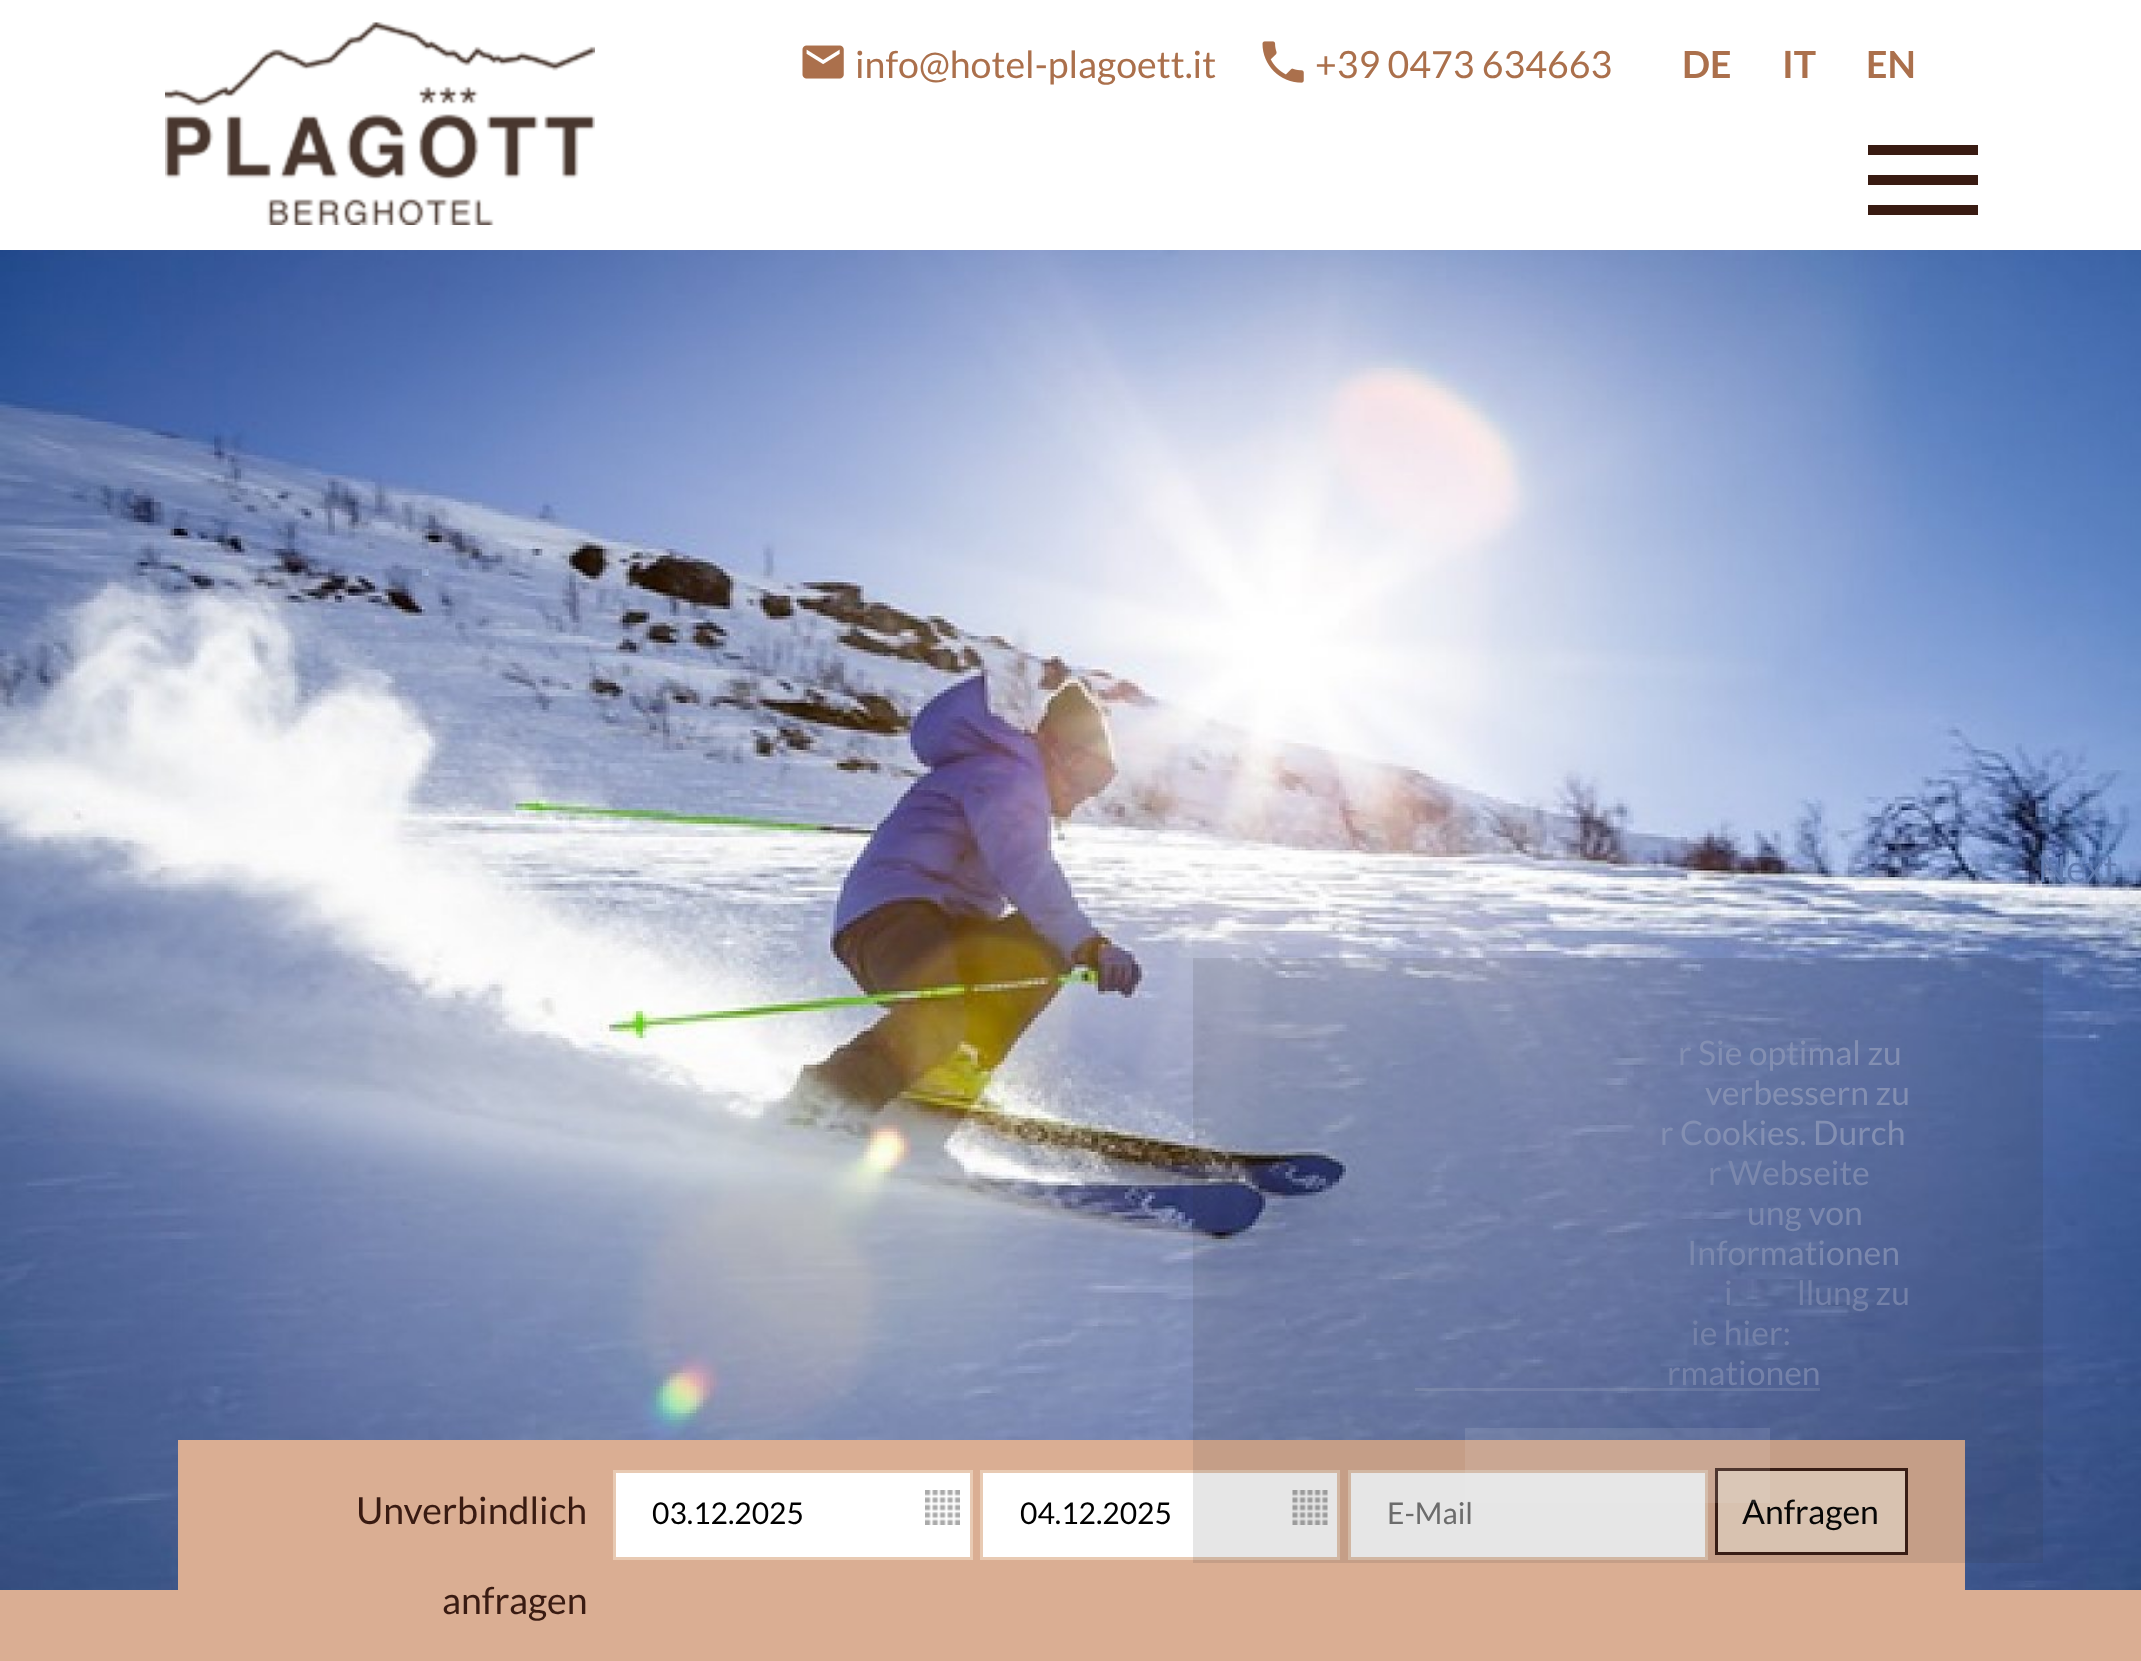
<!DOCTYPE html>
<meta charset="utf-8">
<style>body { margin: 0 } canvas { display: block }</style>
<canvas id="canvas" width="2141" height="1661"></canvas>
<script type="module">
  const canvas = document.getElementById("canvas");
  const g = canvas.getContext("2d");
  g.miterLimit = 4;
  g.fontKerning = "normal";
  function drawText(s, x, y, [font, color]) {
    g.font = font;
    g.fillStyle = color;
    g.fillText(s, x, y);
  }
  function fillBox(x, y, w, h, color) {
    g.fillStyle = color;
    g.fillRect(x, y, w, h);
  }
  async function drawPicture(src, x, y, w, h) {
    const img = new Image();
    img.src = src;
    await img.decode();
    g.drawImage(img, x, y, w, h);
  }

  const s1 = ["37.5px Lato", "#AB704C"];
  const s2 = ["bold 37.5px Lato", "#AB704C"];
  const s3 = ["37.5px Lato", "#617BAE"];
  const s4 = ["37.5px Lato", "#391B12"];
  const s5 = ["30px Lato", "#000000"];
  const s6 = ["30px Lato", "#757575"];
  const s7 = ["33.75px Lato", "#000000"];
  const s8 = ["33.75px Lato", "#838FB2"];
  const s9 = ["33.75px Lato", "#7B88AD"];
  const s10 = ["33.75px Lato", "#7481A8"];

  fillBox(0, 0, 2141, 1661, "#FFFFFF");
  await drawPicture("pic1.png", 165, 22, 430, 203);
  await drawPicture("pic2.png", 802, 45, 42, 34);
  drawText("info@hotel-plagoett.it", 855, 78, s1);
  await drawPicture("pic3.png", 1262, 41, 42, 42);
  drawText("+39 0473 634663", 1315, 78, s1);
  drawText("DE", 1682, 78, s2);
  drawText("IT", 1782, 78, s2);
  drawText("EN", 1866, 78, s2);
  fillBox(1868, 145, 110, 10, "#391B12");
  fillBox(1868, 175, 110, 10, "#391B12");
  fillBox(1868, 205, 110, 10, "#391B12");
  fillBox(0, 1590, 2141, 71, "#DAAE93");
  await drawPicture("pic4.png", 0, 250, 2141, 1340);
  drawText("Next", 2038, 882, s3);
  fillBox(178, 1440, 1787, 150, "#DAAE93");
  drawText("Unverbindlich", 356, 1524, s4);
  drawText("anfragen", 442, 1614, s4);
  g.fillStyle = "#FFFFFF";
  g.beginPath();
  g.rect(614.5, 1471.5, 357, 87);
  g.fill();
  g.strokeStyle = "#E8CAB3";
  g.lineWidth = 3;
  g.stroke();
  drawText("03.12.2025", 652, 1524, s5);
  await drawPicture("pic5.png", 925, 1490, 35, 35);
  g.fillStyle = "#FFFFFF";
  g.beginPath();
  g.rect(981.5, 1471.5, 357, 87);
  g.fill();
  g.stroke();
  drawText("04.12.2025", 1020, 1524, s5);
  await drawPicture("pic6.png", 1292, 1490, 36, 35);
  g.fillStyle = "#FFFFFF";
  g.beginPath();
  g.rect(1349.5, 1471.5, 357, 87);
  g.fill();
  g.stroke();
  drawText("E-Mail", 1387, 1524, s6);
  g.fillStyle = "#F0D7C2";
  g.beginPath();
  g.rect(1716.5, 1469.5, 190, 84);
  g.fill();
  g.strokeStyle = "#391B12";
  g.stroke();
  drawText("Anfragen", 1742, 1524, s7);
  fillBox(1193, 958, 850, 605, "rgba(51, 51, 51, 0.12)");
  drawText("r Sie optimal zu", 1678, 1065, s8);
  drawText("verbessern zu", 1705, 1105, s8);
  drawText("r Cookies. Durch", 1660, 1145, s8);
  drawText("r Webseite", 1708, 1185, s9);
  drawText("ung von", 1747, 1225, s9);
  drawText("Informationen", 1687, 1265, s9);
  drawText("i", 1724, 1305, s10);
  drawText("llung zu", 1797, 1305, s10);
  drawText("ie hier:", 1691, 1345, s10);
  drawText("rmationen", 1667, 1385, s10);
  fillBox(1415, 1388, 405, 3, "rgba(238, 238, 238, 0.12)");
  fillBox(1465, 1428, 305, 75, "rgba(238, 238, 238, 0.12)");
</script>
